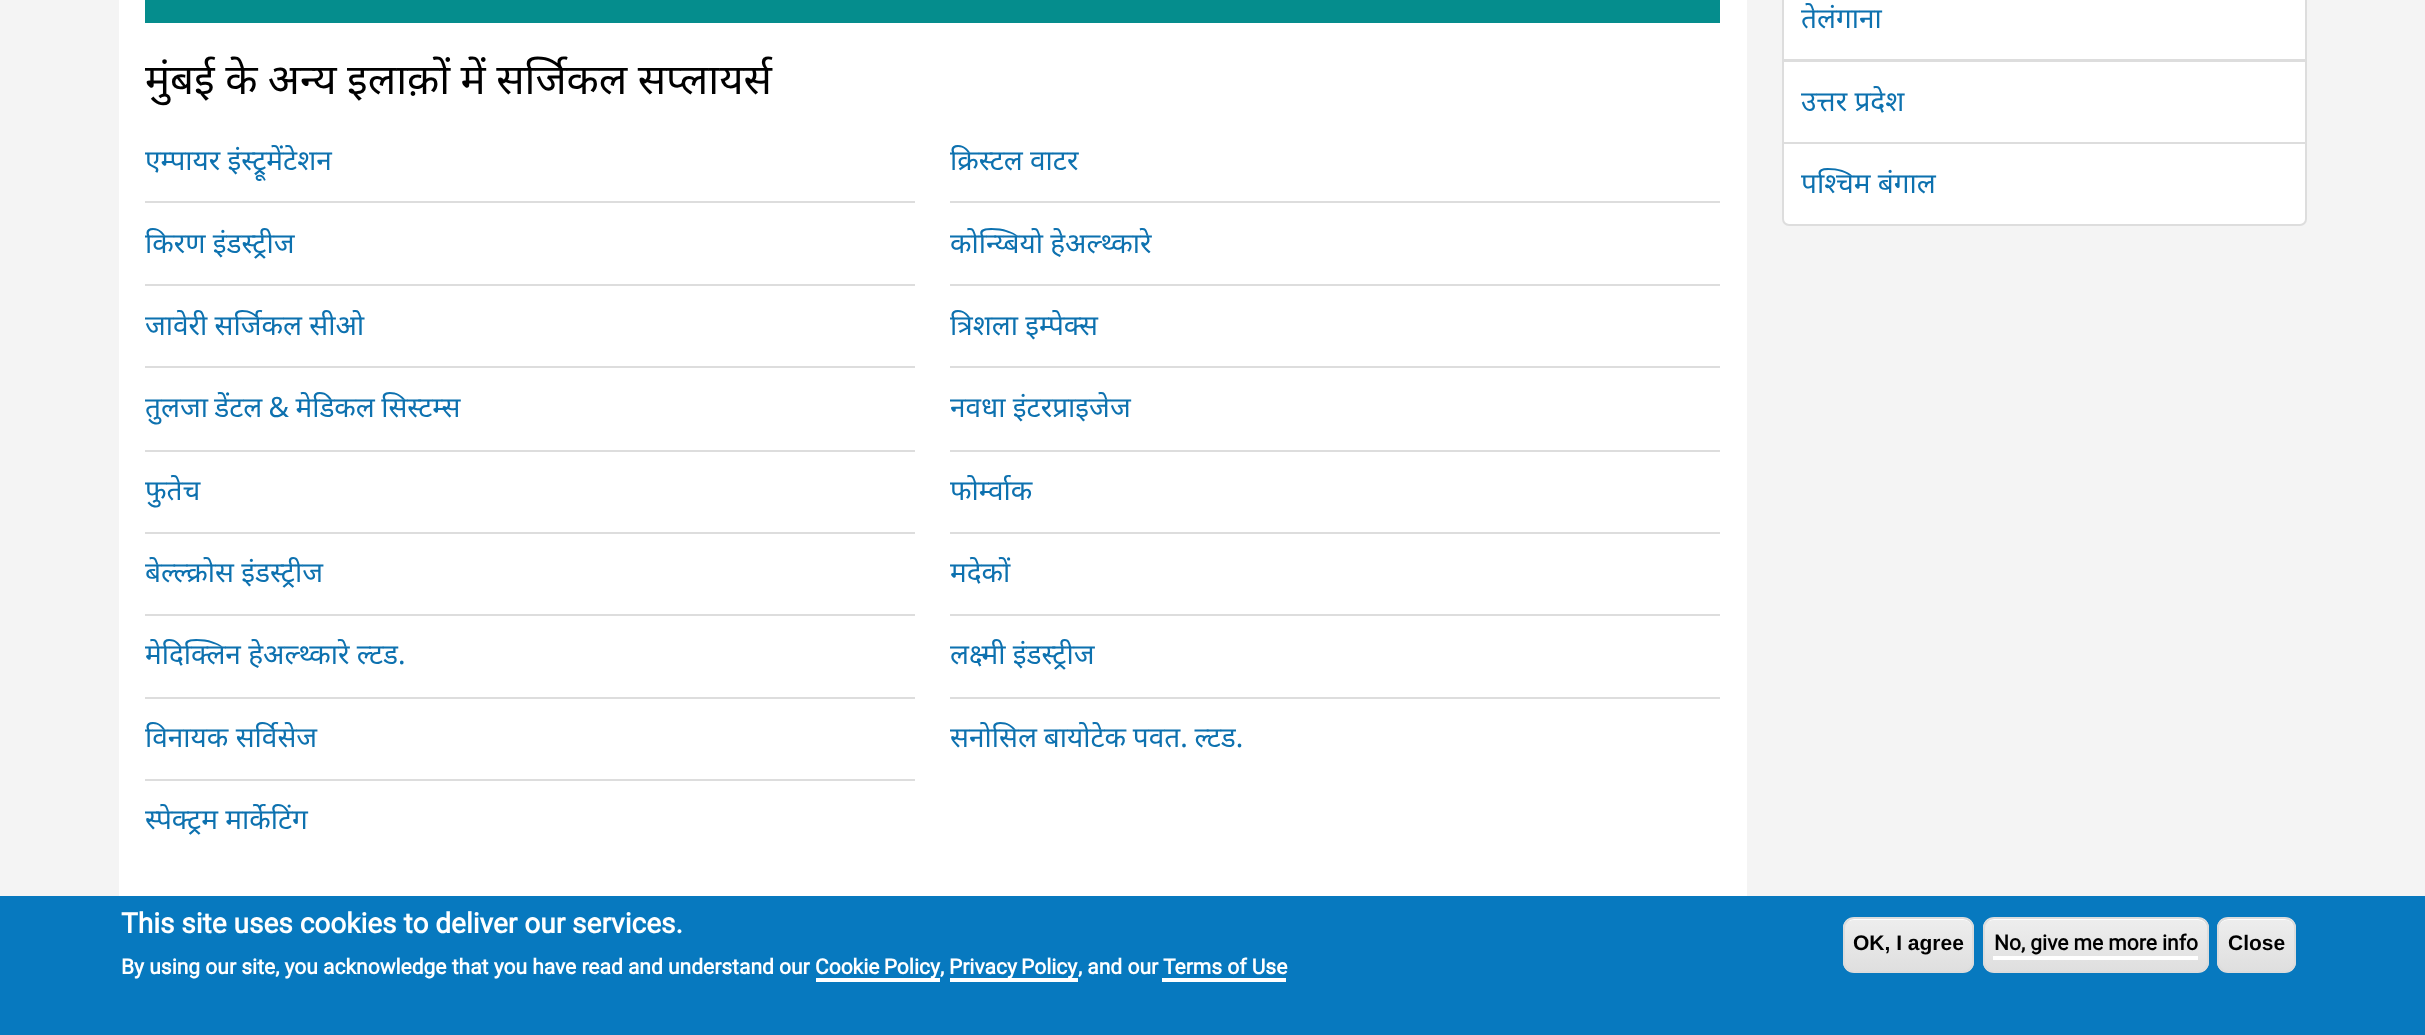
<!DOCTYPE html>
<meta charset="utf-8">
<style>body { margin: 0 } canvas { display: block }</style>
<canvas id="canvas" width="2425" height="1035"></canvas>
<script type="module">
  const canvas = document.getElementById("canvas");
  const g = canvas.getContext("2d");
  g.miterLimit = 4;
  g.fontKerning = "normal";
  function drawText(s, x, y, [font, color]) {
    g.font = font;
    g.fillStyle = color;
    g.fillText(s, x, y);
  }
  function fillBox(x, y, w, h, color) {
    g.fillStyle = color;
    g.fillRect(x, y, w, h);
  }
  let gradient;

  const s1 = ["42px Noto Sans", "#000000"];
  const s2 = ["28px Noto Sans", "#0D71AF"];
  const s3 = ["bold 28px Roboto", "#FFFFFF"];
  const s4 = ["bold 21px Roboto", "#FFFFFF"];
  const s5 = ["bold 21px Liberation Sans", "#000000"];
  const s6 = ["bold 21px Roboto", "#000000"];

  fillBox(0, 0, 2425, 1035, "#F4F4F4");
  fillBox(119, 0, 1628, 896, "#FFFFFF");
  fillBox(145, 0, 1575, 23, "#058D8D");
  g.wordSpacing = "-0.5px";
  drawText("मुंबई के अन्य इलाक़ों में सर्जिकल सप्लायर्स", 145, 94, s1);
  g.wordSpacing = "0px";
  drawText("एम्पायर इंस्ट्रूमेंटेशन", 145, 170, s2);
  drawText("क्रिस्टल वाटर", 950, 170, s2);
  fillBox(145, 201, 770, 2, "#DDDDDD");
  drawText("किरण इंडस्ट्रीज", 145, 253, s2);
  fillBox(950, 201, 770, 2, "#DDDDDD");
  drawText("कोन्य्बियो हेअल्थ्कारे", 950, 253, s2);
  fillBox(145, 284, 770, 2, "#DDDDDD");
  drawText("जावेरी सर्जिकल सीओ", 145, 335, s2);
  fillBox(950, 284, 770, 2, "#DDDDDD");
  drawText("त्रिशला इम्पेक्स", 950, 335, s2);
  fillBox(145, 366, 770, 2, "#DDDDDD");
  g.wordSpacing = "-1px";
  drawText("तुलजा डेंटल & मेडिकल सिस्टम्स", 145, 417, s2);
  fillBox(950, 366, 770, 2, "#DDDDDD");
  g.wordSpacing = "0px";
  drawText("नवधा इंटरप्राइजेज", 950, 417, s2);
  fillBox(145, 450, 770, 2, "#DDDDDD");
  drawText("फुतेच", 145, 500, s2);
  fillBox(950, 450, 770, 2, "#DDDDDD");
  drawText("फोर्म्वाक", 950, 500, s2);
  fillBox(145, 532, 770, 2, "#DDDDDD");
  drawText("बेल्ल्क्रोस इंडस्ट्रीज", 145, 582, s2);
  fillBox(950, 532, 770, 2, "#DDDDDD");
  drawText("मदेकों", 950, 582, s2);
  fillBox(145, 614, 770, 2, "#DDDDDD");
  drawText("मेदिक्लिन हेअल्थ्कारे ल्टड.", 145, 664, s2);
  fillBox(950, 614, 770, 2, "#DDDDDD");
  drawText("लक्ष्मी इंडस्ट्रीज", 950, 664, s2);
  fillBox(145, 697, 770, 2, "#DDDDDD");
  drawText("विनायक सर्विसेज", 145, 747, s2);
  fillBox(950, 697, 770, 2, "#DDDDDD");
  g.wordSpacing = "-0.5px";
  drawText("सनोसिल बायोटेक पवत. ल्टड.", 950, 747, s2);
  fillBox(145, 779, 770, 2, "#DDDDDD");
  g.wordSpacing = "0px";
  drawText("स्पेक्ट्रम मार्केटिंग", 145, 829, s2);
  g.fillStyle = "#FFFFFF";
  g.beginPath();
  g.rect(1783, -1, 523, 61);
  g.fill();
  g.strokeStyle = "#DDDDDD";
  g.lineWidth = 2;
  g.stroke();
  drawText("तेलंगाना", 1801, 28, s2);
  g.fillStyle = "#FFFFFF";
  g.beginPath();
  g.rect(1783, 61, 523, 82);
  g.fill();
  g.stroke();
  drawText("उत्तर प्रदेश", 1801, 111, s2);
  g.fillStyle = "#FFFFFF";
  g.beginPath();
  g.roundRect(1783, 143, 523, 82, [0, 0, 6, 6]);
  g.fill();
  g.stroke();
  drawText("पश्चिम बंगाल", 1801, 193, s2);
  fillBox(0, 896, 2425, 139, "#0779BF");
  drawText("This site uses cookies to deliver our services.", 121, 933, s3);
  drawText("By using our site, you acknowledge that you have read and understand our", 121, 974, s4);
  fillBox(816, 978, 124, 4, "#FFFFFF");
  g.wordSpacing = "-1px";
  drawText("Cookie Policy", 815, 974, s4);
  g.wordSpacing = "0px";
  drawText(",", 940, 974, s4);
  fillBox(950, 978, 128, 4, "#FFFFFF");
  g.wordSpacing = "-1px";
  drawText("Privacy Policy", 949, 974, s4);
  g.wordSpacing = "0px";
  drawText(", and our", 1078, 974, s4);
  drawText("Terms of Use", 1163, 974, s4);
  fillBox(1162, 978, 124, 4, "#FFFFFF");
  g.save();
  g.beginPath();
  g.roundRect(1843, 917, 131, 56, 11);
  g.clip();
  gradient = g.createLinearGradient(1845, 919, 1845, 971);
  gradient.addColorStop(0.05, "#EDEDED");
  gradient.addColorStop(1, "#DFDFDF");
  g.fillStyle = gradient;
  g.fillRect(1843, 919, 131, 52);
  g.restore();
  g.beginPath();
  g.moveTo(1853, 920);
  g.lineTo(1964, 920);
  g.bezierCurveTo(1968, 920, 1972, 924, 1972, 929);
  g.lineTo(1972, 928);
  g.bezierCurveTo(1972, 923, 1968, 919, 1963, 919);
  g.lineTo(1854, 919);
  g.bezierCurveTo(1851, 919, 1849, 920, 1847, 922);
  g.bezierCurveTo(1849, 921, 1851, 920, 1853, 920);
  g.closePath();
  g.fill();
  g.beginPath();
  g.roundRect(1844, 918, 129, 54, 10);
  g.strokeStyle = "#DCDCDC";
  g.stroke();
  drawText("OK, I agree", 1853, 950, s5);
  g.save();
  g.beginPath();
  g.roundRect(1983, 917, 226, 56, 11);
  g.clip();
  gradient = g.createLinearGradient(1985, 919, 1985, 971);
  gradient.addColorStop(0.05, "#EDEDED");
  gradient.addColorStop(1, "#DFDFDF");
  g.fillStyle = gradient;
  g.fillRect(1983, 919, 226, 52);
  g.restore();
  g.fillStyle = "#FFFFFF";
  g.beginPath();
  g.moveTo(1993, 920);
  g.lineTo(2198, 920);
  g.bezierCurveTo(2203, 920, 2207, 924, 2207, 929);
  g.lineTo(2207, 928);
  g.bezierCurveTo(2207, 923, 2203, 919, 2198, 919);
  g.lineTo(1994, 919);
  g.bezierCurveTo(1991, 919, 1989, 920, 1987, 922);
  g.bezierCurveTo(1989, 921, 1991, 920, 1993, 920);
  g.closePath();
  g.fill();
  g.beginPath();
  g.roundRect(1984, 918, 224, 54, 10);
  g.stroke();
  drawText("No, give me more info", 1994, 950, s6);
  fillBox(1993, 956, 205, 4, "#FFFFFF");
  g.save();
  g.beginPath();
  g.roundRect(2217, 917, 79, 56, 11);
  g.clip();
  gradient = g.createLinearGradient(2219, 919, 2219, 971);
  gradient.addColorStop(0.05, "#EDEDED");
  gradient.addColorStop(1, "#DFDFDF");
  g.fillStyle = gradient;
  g.fillRect(2217, 919, 79, 52);
  g.restore();
  g.beginPath();
  g.moveTo(2228, 920);
  g.lineTo(2286, 920);
  g.bezierCurveTo(2290, 920, 2294, 924, 2294, 929);
  g.bezierCurveTo(2294, 918, 2284, 919, 2276, 919);
  g.lineTo(2238, 919);
  g.bezierCurveTo(2229, 919, 2219, 918, 2219, 929);
  g.bezierCurveTo(2219, 924, 2223, 920, 2228, 920);
  g.closePath();
  g.fill();
  g.beginPath();
  g.roundRect(2218, 918, 77, 54, 10);
  g.stroke();
  drawText("Close", 2228, 950, s5);
</script>
